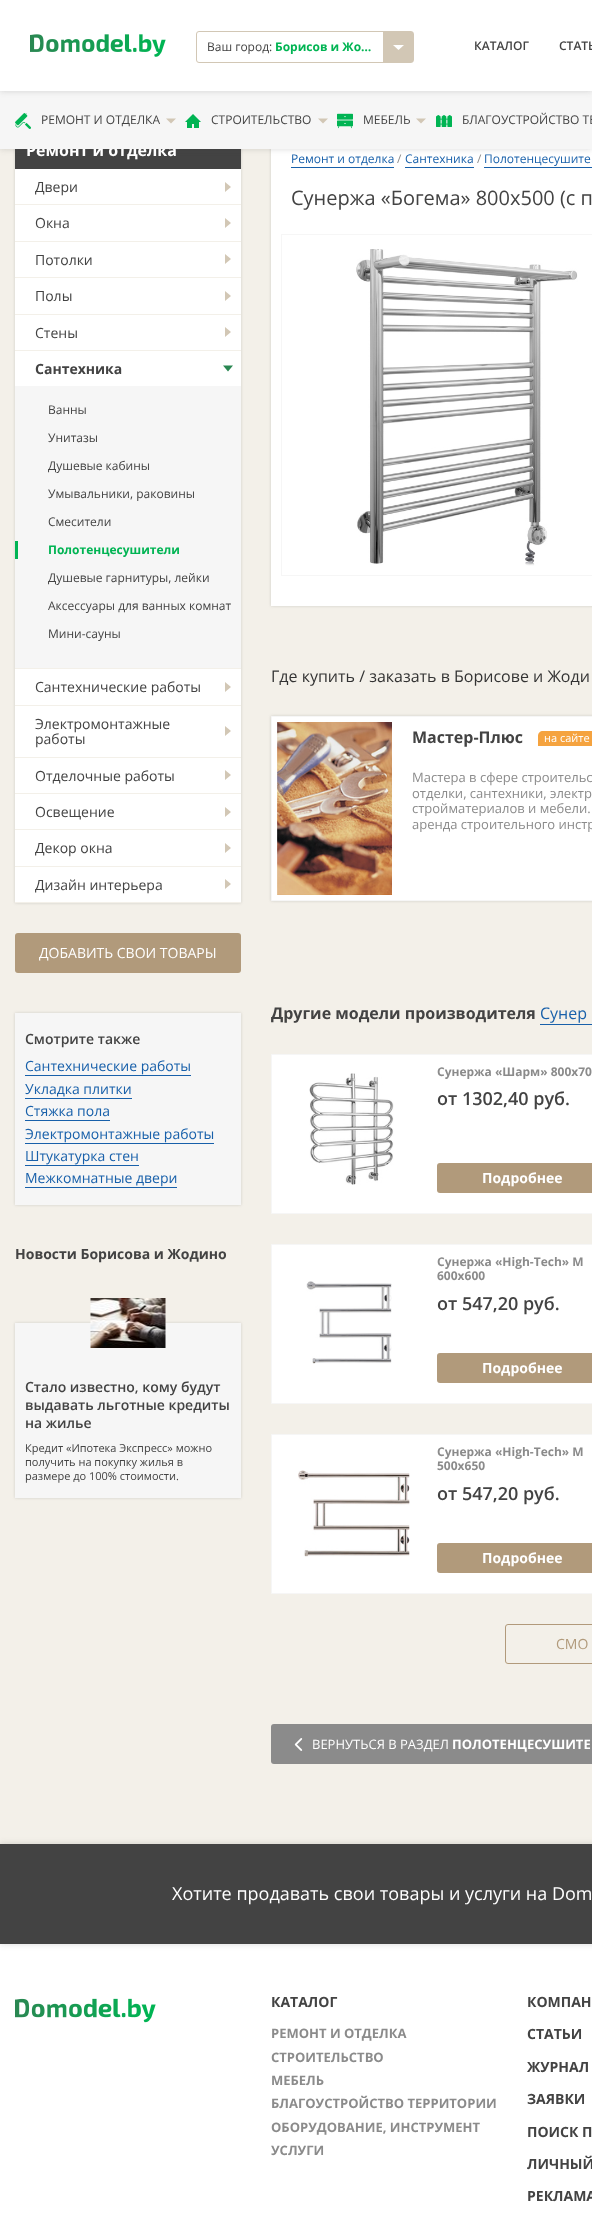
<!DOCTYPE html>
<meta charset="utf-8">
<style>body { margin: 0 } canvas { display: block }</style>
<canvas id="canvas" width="592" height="2235"></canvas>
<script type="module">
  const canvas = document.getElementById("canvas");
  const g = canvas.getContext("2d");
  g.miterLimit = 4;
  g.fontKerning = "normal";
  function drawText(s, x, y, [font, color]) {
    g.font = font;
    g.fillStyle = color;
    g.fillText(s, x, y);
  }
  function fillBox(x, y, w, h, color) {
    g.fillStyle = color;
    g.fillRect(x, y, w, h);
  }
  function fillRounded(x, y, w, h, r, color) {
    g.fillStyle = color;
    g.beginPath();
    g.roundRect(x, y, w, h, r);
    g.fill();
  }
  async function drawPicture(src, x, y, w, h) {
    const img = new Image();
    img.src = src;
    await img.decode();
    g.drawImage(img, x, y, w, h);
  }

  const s1 = ["bold 16px Open Sans", "#FFFFFF"];
  const s2 = ["12px Open Sans", "#434343"];
  const s3 = ["bold 12px Open Sans", "#00B453"];
  const s4 = ["600 12px Open Sans", "#434343"];
  const s5 = ["14px Open Sans", "#434343"];
  const s6 = ["bold 14px Open Sans", "#434343"];
  const s7 = ["14px Open Sans", "#FFFFFF"];
  const s8 = ["600 14px Open Sans", "#434343"];
  const s9 = ["14px Open Sans", "#1860AA"];
  const s10 = ["11px Open Sans", "#434343"];
  const s11 = ["12px Open Sans", "#1860AA"];
  const s12 = ["12px Open Sans", "#8B8B8B"];
  const s13 = ["20px Open Sans", "#434343"];
  const s14 = ["16px Open Sans", "#333333"];
  const s15 = ["bold 16px Open Sans", "#434343"];
  const s16 = ["11px Open Sans", "#FFFFFF"];
  const s17 = ["13px Open Sans", "#8B8B8B"];
  const s18 = ["16px Open Sans", "#1860AA"];
  const s19 = ["bold 12px Open Sans", "#8B8B8B"];
  const s20 = ["600 18px Open Sans", "#434343"];
  const s21 = ["bold 14px Open Sans", "#FFFFFF"];
  const s22 = ["14px Open Sans", "#B19A7B"];
  const s23 = ["13px Open Sans", "#FFFFFF"];
  const s24 = ["bold 13px Open Sans", "#FFFFFF"];
  const s25 = ["18px Open Sans", "#FFFFFF"];
  const s26 = ["bold 13px Open Sans", "#8B8B8B"];

  fillBox(0, 0, 592, 2235, "#F3F0E9");
  g.fillStyle = "rgba(67, 67, 67, 0.2)";
  g.filter = "blur(1.5px)";
  g.beginPath();
  g.rect(15, 131, 226, 772);
  g.fill();
  g.filter = "none";
  fillBox(15, 149, 226, 20, "#434343");
  g.fillStyle = "rgba(67, 67, 67, 0.2)";
  g.filter = "blur(1.5px)";
  g.beginPath();
  g.rect(271, 131, 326, 475);
  g.fill();
  g.filter = "none";
  fillBox(271, 149, 321, 457, "#FFFFFF");
  g.fillStyle = "rgba(67, 67, 67, 0.2)";
  g.filter = "blur(3px)";
  g.beginPath();
  g.rect(0, 91, 592, 58);
  g.fill();
  g.filter = "none";
  drawText("Ремонт и отделка", 26, 156, s1);
  fillBox(0, 91, 592, 58, "#F6F6F6");
  g.fillStyle = "rgba(67, 67, 67, 0.2)";
  g.filter = "blur(3px)";
  g.beginPath();
  g.rect(0, 0, 592, 91);
  g.fill();
  g.filter = "none";
  fillBox(0, 0, 592, 91, "#FFFFFF");
  await drawPicture("pic1.png", 30, 34, 136, 23);
  g.beginPath();
  g.roundRect(196.5, 31.5, 217, 31, 2.5);
  g.strokeStyle = "#D2C7B5";
  g.stroke();
  drawText("Ваш город:", 207, 51, s2);
  drawText("Борисов и Жо…", 275, 51, s3);
  fillBox(383, 32, 30, 30, "#D2C7B5");
  g.fillStyle = "#FFFFFF";
  g.beginPath();
  g.moveTo(404, 45);
  g.lineTo(398.5, 50);
  g.lineTo(393, 45);
  g.closePath();
  g.fill();
  drawText("КАТАЛОГ", 474, 50, s4);
  drawText("СТАТЬ", 559, 50, s4);
  await drawPicture("pic2.png", 15, 113, 16, 16);
  drawText("РЕМОНТ И ОТДЕЛКА", 41, 124, s2);
  g.fillStyle = "#D2C7B5";
  g.beginPath();
  g.moveTo(176, 118.5);
  g.lineTo(171, 123.5);
  g.lineTo(166, 118.5);
  g.closePath();
  g.fill();
  await drawPicture("pic3.png", 185, 114, 16, 14);
  drawText("СТРОИТЕЛЬСТВО", 211, 124, s2);
  g.fillStyle = "#D2C7B5";
  g.beginPath();
  g.moveTo(328, 118.5);
  g.lineTo(323, 123.5);
  g.lineTo(318, 118.5);
  g.closePath();
  g.fill();
  await drawPicture("pic4.png", 337, 113, 16, 16);
  drawText("МЕБЕЛЬ", 363, 124, s2);
  g.fillStyle = "#D2C7B5";
  g.beginPath();
  g.moveTo(426, 118.5);
  g.lineTo(421, 123.5);
  g.lineTo(416, 118.5);
  g.closePath();
  g.fill();
  await drawPicture("pic5.png", 436, 115, 16, 12);
  drawText("БЛАГОУСТРОЙСТВО ТЕ", 462, 124, s2);
  fillBox(15, 169, 226, 733, "#FFFFFF");
  fillBox(15, 204, 226, 1, "#F3F0E9");
  drawText("Двери", 35, 192, s5);
  g.fillStyle = "#D2C7B5";
  g.beginPath();
  g.moveTo(225, 192);
  g.lineTo(225, 182);
  g.lineTo(231, 187);
  g.closePath();
  g.fill();
  fillBox(15, 241, 226, 1, "#F3F0E9");
  drawText("Окна", 35, 228, s5);
  g.fillStyle = "#D2C7B5";
  g.beginPath();
  g.moveTo(225, 228);
  g.lineTo(225, 218);
  g.lineTo(231, 223);
  g.closePath();
  g.fill();
  fillBox(15, 277, 226, 1, "#F3F0E9");
  drawText("Потолки", 35, 265, s5);
  g.fillStyle = "#D2C7B5";
  g.beginPath();
  g.moveTo(225, 264);
  g.lineTo(225, 254);
  g.lineTo(231, 259);
  g.closePath();
  g.fill();
  fillBox(15, 314, 226, 1, "#F3F0E9");
  drawText("Полы", 35, 301, s5);
  g.fillStyle = "#D2C7B5";
  g.beginPath();
  g.moveTo(225, 301);
  g.lineTo(225, 291);
  g.lineTo(231, 296);
  g.closePath();
  g.fill();
  fillBox(15, 350, 226, 1, "#F3F0E9");
  drawText("Стены", 35, 338, s5);
  g.fillStyle = "#D2C7B5";
  g.beginPath();
  g.moveTo(225, 337);
  g.lineTo(225, 327);
  g.lineTo(231, 332);
  g.closePath();
  g.fill();
  fillBox(15, 668, 226, 1, "#F3F0E9");
  drawText("Сантехника", 35, 374, s6);
  g.fillStyle = "#2A8752";
  g.beginPath();
  g.moveTo(223, 365.5);
  g.lineTo(233, 365.5);
  g.lineTo(228, 371.5);
  g.closePath();
  g.fill();
  fillBox(15, 386, 226, 282, "#F6F6F6");
  drawText("Ванны", 48, 414, s2);
  drawText("Унитазы", 48, 442, s2);
  drawText("Душевые кабины", 48, 470, s2);
  drawText("Умывальники, раковины", 48, 498, s2);
  drawText("Смесители", 48, 526, s2);
  fillBox(15, 541, 3, 18, "#00B453");
  drawText("Полотенцесушители", 48, 554, s3);
  drawText("Душевые гарнитуры, лейки", 48, 582, s2);
  drawText("Аксессуары для ванных комнат", 48, 610, s2);
  drawText("Мини-сауны", 48, 638, s2);
  fillBox(15, 705, 226, 1, "#F3F0E9");
  drawText("Сантехнические работы", 35, 692, s5);
  g.fillStyle = "#D2C7B5";
  g.beginPath();
  g.moveTo(225, 692);
  g.lineTo(225, 682);
  g.lineTo(231, 687);
  g.closePath();
  g.fill();
  fillBox(15, 757, 226, 1, "#F3F0E9");
  drawText("Электромонтажные", 35, 729, s5);
  g.fillStyle = "#D2C7B5";
  g.beginPath();
  g.moveTo(225, 736);
  g.lineTo(225, 726);
  g.lineTo(231, 731);
  g.closePath();
  g.fill();
  drawText("работы", 35, 744, s5);
  fillBox(15, 793, 226, 1, "#F3F0E9");
  drawText("Отделочные работы", 35, 781, s5);
  g.fillStyle = "#D2C7B5";
  g.beginPath();
  g.moveTo(225, 780);
  g.lineTo(225, 770);
  g.lineTo(231, 775);
  g.closePath();
  g.fill();
  fillBox(15, 829, 226, 1, "#F3F0E9");
  drawText("Освещение", 35, 817, s5);
  g.fillStyle = "#D2C7B5";
  g.beginPath();
  g.moveTo(225, 817);
  g.lineTo(225, 807);
  g.lineTo(231, 812);
  g.closePath();
  g.fill();
  fillBox(15, 866, 226, 1, "#F3F0E9");
  drawText("Декор окна", 35, 853, s5);
  g.fillStyle = "#D2C7B5";
  g.beginPath();
  g.moveTo(225, 853);
  g.lineTo(225, 843);
  g.lineTo(231, 848);
  g.closePath();
  g.fill();
  fillBox(15, 902, 226, 1, "#F3F0E9");
  drawText("Дизайн интерьера", 35, 890, s5);
  g.fillStyle = "#D2C7B5";
  g.beginPath();
  g.moveTo(225, 889);
  g.lineTo(225, 879);
  g.lineTo(231, 884);
  g.closePath();
  g.fill();
  fillRounded(15, 933, 226, 40, 3, "#B19A7B");
  drawText("ДОБАВИТЬ СВОИ ТОВАРЫ", 39, 958, s7);
  g.fillStyle = "rgba(67, 67, 67, 0.2)";
  g.filter = "blur(1.5px)";
  g.beginPath();
  g.rect(15, 1013, 226, 192);
  g.fill();
  g.filter = "none";
  fillBox(15, 1013, 226, 192, "#F6F6F6");
  drawText("Смотрите также", 25, 1044, s8);
  drawText("Сантехнические работы", 25, 1071, s9);
  fillBox(25, 1075, 166, 1, "#1860AA");
  drawText("Укладка плитки", 25, 1094, s9);
  fillBox(25, 1098, 107, 1, "#1860AA");
  drawText("Стяжка пола", 25, 1116, s9);
  fillBox(25, 1120, 85, 1, "#1860AA");
  drawText("Электромонтажные работы", 25, 1139, s9);
  fillBox(25, 1143, 189, 1, "#1860AA");
  drawText("Штукатурка стен", 25, 1161, s9);
  fillBox(25, 1165, 114, 1, "#1860AA");
  drawText("Межкомнатные двери", 25, 1183, s9);
  fillBox(25, 1187, 152, 1, "#1860AA");
  drawText("Новости Борисова и Жодино", 15, 1259, s6);
  g.fillStyle = "rgba(67, 67, 67, 0.2)";
  g.filter = "blur(1.5px)";
  g.beginPath();
  g.rect(15, 1323, 226, 175);
  g.fill();
  g.filter = "none";
  fillBox(15, 1323, 226, 175, "#F6F6F6");
  await drawPicture("pic6.png", 90, 1298, 76, 50);
  drawText("Стало известно, кому будут", 25, 1392, s8);
  drawText("выдавать льготные кредиты", 25, 1410, s8);
  drawText("на жилье", 25, 1428, s8);
  drawText("Кредит «Ипотека Экспресс» можно", 25, 1452, s10);
  drawText("получить на покупку жилья в", 25, 1466, s10);
  drawText("размере до 100% стоимости.", 25, 1480, s10);
  drawText("Ремонт и отделка", 291, 163, s11);
  fillBox(291, 167, 103, 1, "#1860AA");
  drawText("/", 397, 163, s12);
  drawText("Сантехника", 405, 163, s11);
  fillBox(405, 167, 69, 1, "#1860AA");
  drawText("/", 477, 163, s12);
  drawText("Полотенцесушите", 484, 163, s11);
  fillBox(484, 167, 108, 1, "#1860AA");
  drawText("Сунержа «Богема» 800х500 (с п", 291, 205, s13);
  g.strokeStyle = "#F6F6F6";
  g.strokeRect(281.5, 234.5, 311, 341);
  await drawPicture("pic7.png", 356, 249, 222, 317);
  drawText("Где купить / заказать в Борисове и Жоди", 271, 682, s14);
  g.fillStyle = "rgba(67, 67, 67, 0.2)";
  g.filter = "blur(1.5px)";
  g.beginPath();
  g.rect(271, 716, 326, 185);
  g.fill();
  g.filter = "none";
  g.fillStyle = "#FFFFFF";
  g.beginPath();
  g.rect(271.5, 716.5, 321, 184);
  g.fill();
  g.stroke();
  await drawPicture("pic8.png", 277, 722, 115, 173);
  drawText("Мастер-Плюс", 412, 743, s15);
  g.fillStyle = "#F5A33F";
  g.beginPath();
  g.moveTo(543, 731);
  g.lineTo(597, 731);
  g.lineTo(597, 741);
  g.bezierCurveTo(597, 744, 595, 746, 592, 746);
  g.lineTo(538, 746);
  g.lineTo(538, 736);
  g.bezierCurveTo(538, 733, 540, 731, 543, 731);
  g.closePath();
  g.fill();
  drawText("на сайте", 544, 742, s16);
  drawText("Мастера в сфере строительс", 412, 782, s17);
  drawText("отделки, сантехники, электр", 412, 798, s17);
  drawText("стройматериалов и мебели.", 412, 813, s17);
  drawText("аренда строительного инстр", 412, 829, s17);
  drawText("Другие модели производителя", 271, 1019, s15);
  drawText("Сунер", 540, 1019, s18);
  fillBox(540, 1024, 52, 1, "#1860AA");
  g.fillStyle = "#FFFFFF";
  g.beginPath();
  g.rect(271.5, 1054.5, 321, 159);
  g.fill();
  g.stroke();
  await drawPicture("pic9.png", 309, 1073, 85, 112);
  drawText("Сунержа «Шарм» 800х70", 437, 1076, s19);
  drawText("от 1302,40 руб.", 437, 1105, s20);
  fillRounded(437, 1163, 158, 30, 3, "#B19A7B");
  drawText("Подробнее", 482, 1183, s21);
  g.beginPath();
  g.rect(271.5, 1244.5, 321, 159);
  g.fill();
  g.stroke();
  await drawPicture("pic10.png", 306, 1281, 86, 83);
  drawText("Сунержа «High-Tech» М", 437, 1266, s19);
  drawText("600х600", 437, 1280, s19);
  drawText("от 547,20 руб.", 437, 1310, s20);
  fillRounded(437, 1353, 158, 30, 3, "#B19A7B");
  drawText("Подробнее", 482, 1373, s21);
  g.beginPath();
  g.rect(271.5, 1434.5, 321, 159);
  g.fill();
  g.stroke();
  await drawPicture("pic11.png", 298, 1470, 112, 87);
  drawText("Сунержа «High-Tech» М", 437, 1456, s19);
  drawText("500х650", 437, 1470, s19);
  drawText("от 547,20 руб.", 437, 1500, s20);
  fillRounded(437, 1543, 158, 30, 3, "#B19A7B");
  drawText("Подробнее", 482, 1563, s21);
  g.beginPath();
  g.roundRect(505.5, 1624.5, 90, 39, 2.5);
  g.strokeStyle = "#B19A7B";
  g.stroke();
  drawText("СМО", 556, 1649, s22);
  fillRounded(271, 1724, 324, 40, 3, "#8B8B8B");
  await drawPicture("pic12.png", 294, 1738, 9, 13);
  drawText("ВЕРНУТЬСЯ В РАЗДЕЛ", 312, 1749, s23);
  drawText("ПОЛОТЕНЦЕСУШИТЕ", 452, 1749, s24);
  fillBox(0, 1944, 592, 291, "#FFFFFF");
  g.fillStyle = "rgba(67, 67, 67, 0.2)";
  g.filter = "blur(3px)";
  g.beginPath();
  g.rect(0, 1844, 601, 100);
  g.fill();
  g.filter = "none";
  fillBox(0, 1844, 592, 100, "#434343");
  drawText("Хотите продавать свои товары и услуги на Dom", 172, 1900, s25);
  await drawPicture("pic13.png", 15, 1998, 141, 25);
  drawText("КАТАЛОГ", 271, 2007, s6);
  drawText("РЕМОНТ И ОТДЕЛКА", 271, 2038, s26);
  drawText("СТРОИТЕЛЬСТВО", 271, 2062, s26);
  drawText("МЕБЕЛЬ", 271, 2085, s26);
  drawText("БЛАГОУСТРОЙСТВО ТЕРРИТОРИИ", 271, 2108, s26);
  drawText("ОБОРУДОВАНИЕ, ИНСТРУМЕНТ", 271, 2132, s26);
  drawText("УСЛУГИ", 271, 2155, s26);
  drawText("КОМПАН", 527, 2007, s6);
  drawText("СТАТЬИ", 527, 2039, s6);
  drawText("ЖУРНАЛ", 527, 2072, s6);
  drawText("ЗАЯВКИ", 527, 2104, s6);
  drawText("ПОИСК П", 527, 2137, s6);
  drawText("ЛИЧНЫЙ", 527, 2169, s6);
  drawText("РЕКЛАМА", 527, 2201, s6);
</script>
